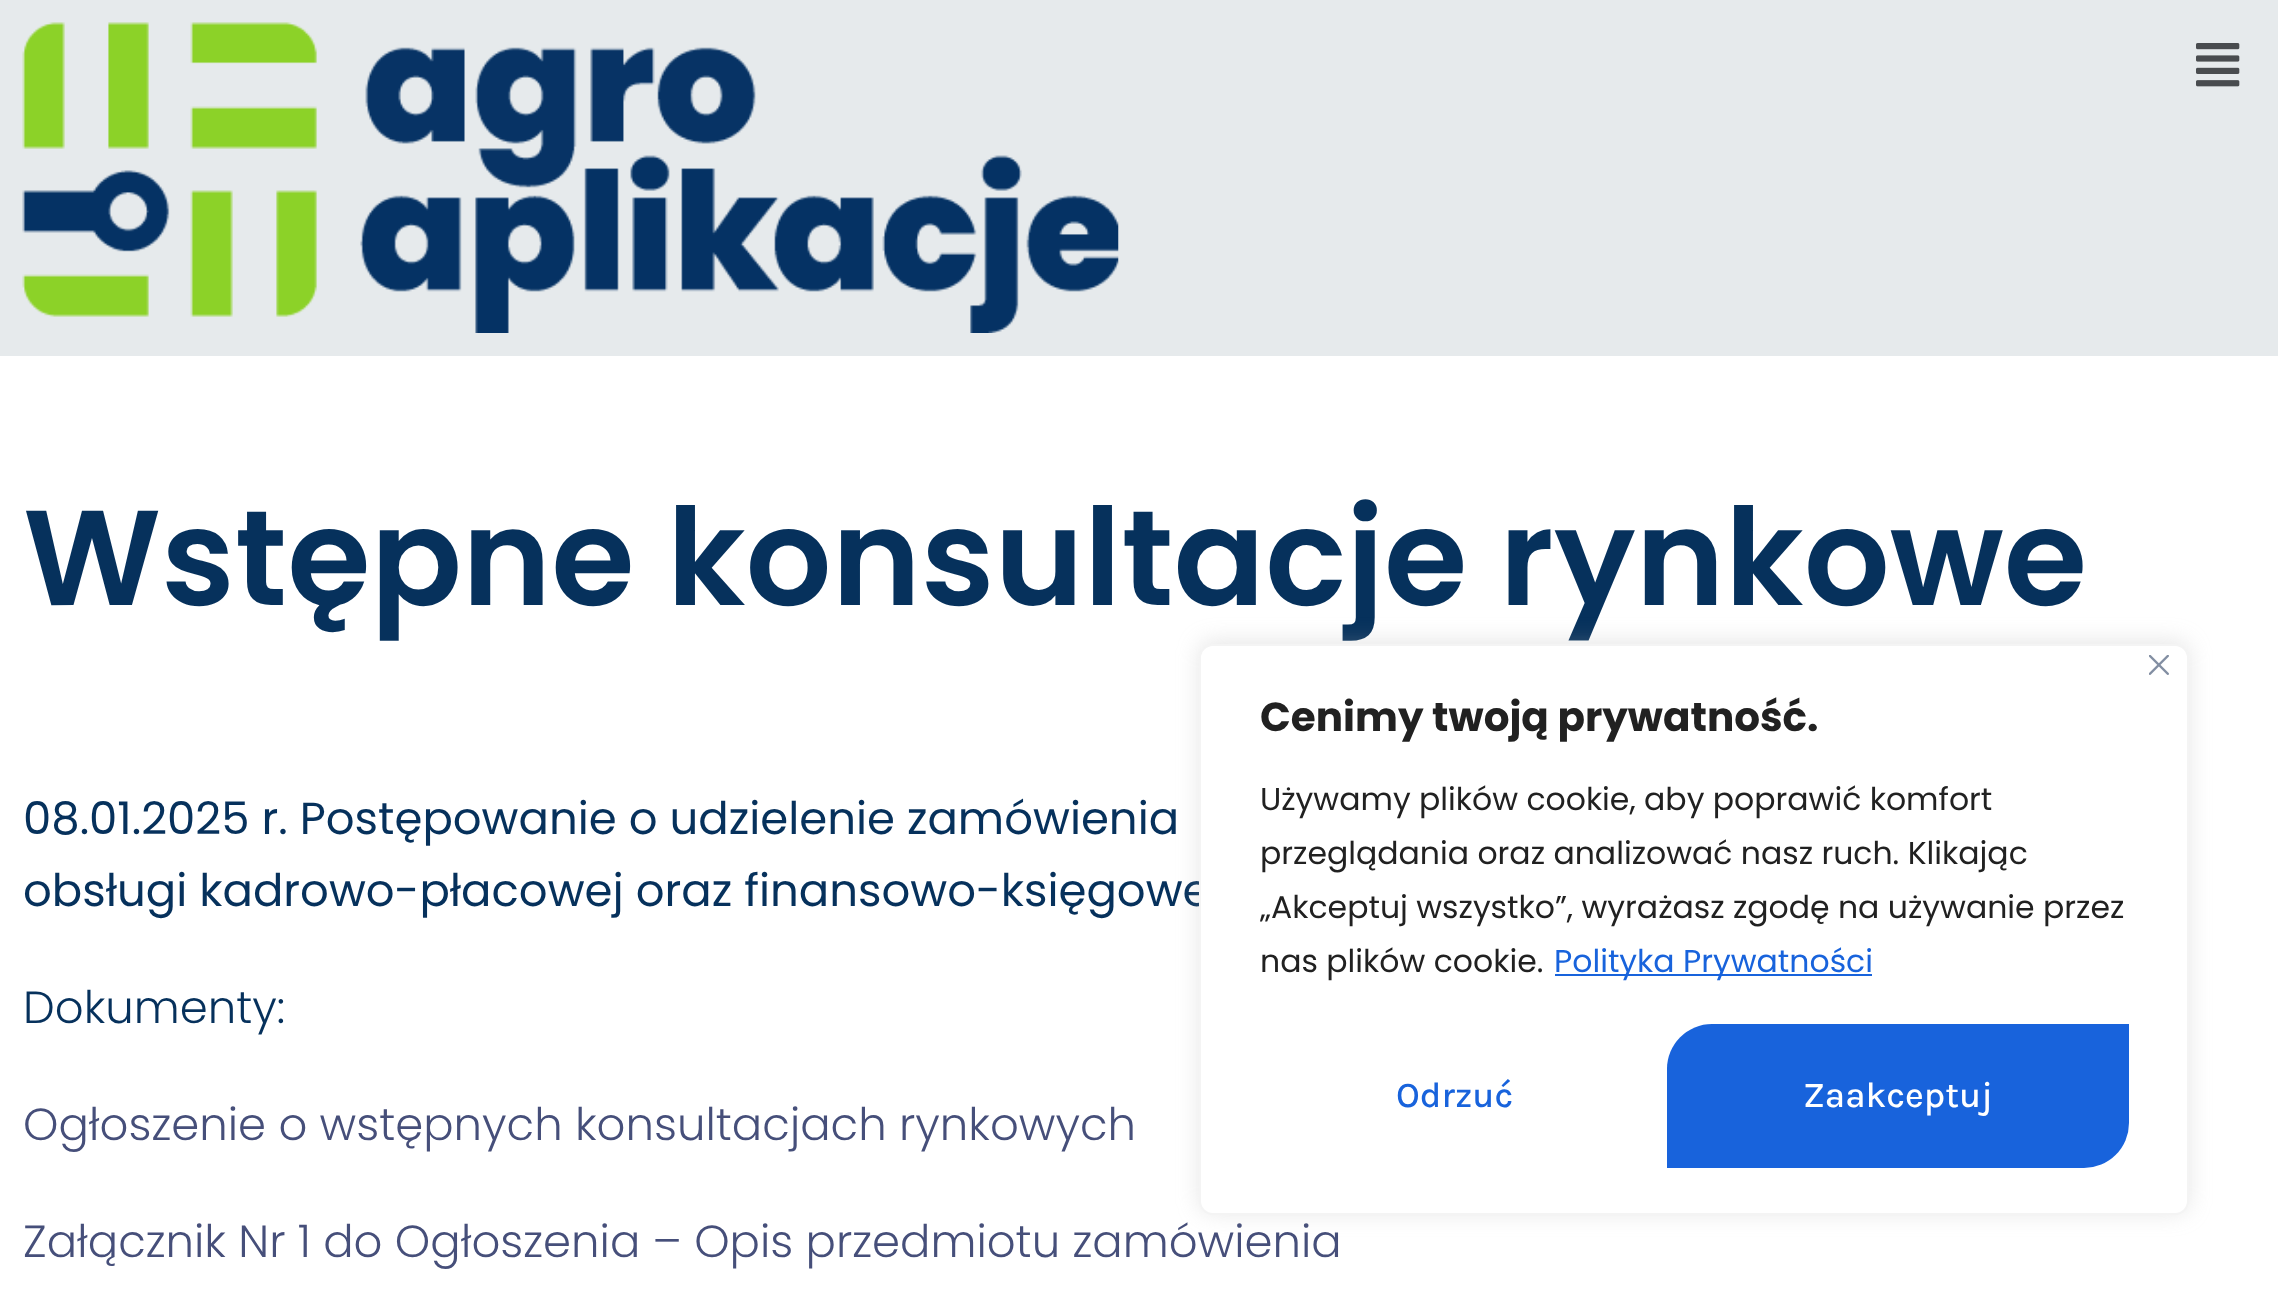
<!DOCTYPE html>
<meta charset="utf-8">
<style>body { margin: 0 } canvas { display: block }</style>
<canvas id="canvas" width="2278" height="1305"></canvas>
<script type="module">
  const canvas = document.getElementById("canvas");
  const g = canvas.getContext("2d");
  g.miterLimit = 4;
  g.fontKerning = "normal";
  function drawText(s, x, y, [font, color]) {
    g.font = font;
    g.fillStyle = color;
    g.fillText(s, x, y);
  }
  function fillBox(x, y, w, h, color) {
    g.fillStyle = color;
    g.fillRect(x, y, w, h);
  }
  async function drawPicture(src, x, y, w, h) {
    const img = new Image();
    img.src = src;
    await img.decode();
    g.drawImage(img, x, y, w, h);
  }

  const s1 = ["600 135px Poppins", "#06315C"];
  const s2 = ["45px Poppins", "#06315C"];
  const s3 = ["300 45px Poppins", "#06315C"];
  const s4 = ["300 45px Poppins", "#464F7A"];
  const s5 = ["bold 40.5px Poppins", "#212121"];
  const s6 = ["31.5px Poppins", "#212121"];
  const s7 = ["31.5px Poppins", "#1863DC"];
  const s8 = ["500 36px Karla", "#1863DC"];
  const s9 = ["500 36px Karla", "#FFFFFF"];

  fillBox(0, 0, 2278, 1305, "#FFFFFF");
  fillBox(0, 0, 2278, 356, "#E6EAEC");
  await drawPicture("pic1.png", 22, 22, 1097, 311);
  await drawPicture("pic2.png", 2196, 43, 44, 44);
  drawText("Wstępne konsultacje rynkowe", 23, 605, s1);
  drawText("08.01.2025 r. Postępowanie o udzielenie zamówienia", 23, 834, s2);
  drawText("obsługi kadrowo-płacowej oraz finansowo-księgowe", 23, 906, s2);
  drawText("Dokumenty:", 23, 1023, s3);
  drawText("Ogłoszenie o wstępnych konsultacjach rynkowych", 23, 1140, s4);
  drawText("Załącznik Nr 1 do Ogłoszenia – Opis przedmiotu zamówienia", 23, 1257, s4);
  g.fillStyle = "rgba(172, 171, 171, 0.3)";
  g.filter = "blur(11px)";
  g.beginPath();
  g.roundRect(1199, 641, 990, 572, 14);
  g.fill();
  g.filter = "none";
  g.fillStyle = "#FFFFFF";
  g.beginPath();
  g.roundRect(1200, 645, 988, 569, 13);
  g.fill();
  g.strokeStyle = "#F4F4F4";
  g.lineWidth = 2;
  g.stroke();
  await drawPicture("pic3.png", 2149, 655, 20, 20);
  drawText("Cenimy twoją prywatność.", 1260, 731, s5);
  drawText("Używamy plików cookie, aby poprawić komfort", 1260, 810, s6);
  drawText("przeglądania oraz analizować nasz ruch. Klikając", 1260, 864, s6);
  drawText("„Akceptuj wszystko”, wyrażasz zgodę na używanie przez", 1260, 918, s6);
  drawText("nas plików cookie.", 1260, 972, s6);
  fillBox(1555, 974, 317, 2, "#1863DC");
  drawText("Polityka Prywatności", 1554, 972, s7);
  drawText("Odrzuć", 1396, 1107, s8);
  g.beginPath();
  g.roundRect(1667, 1024, 462, 144, [45, 0, 45, 0]);
  g.fill();
  drawText("Zaakceptuj", 1803, 1107, s9);
</script>
